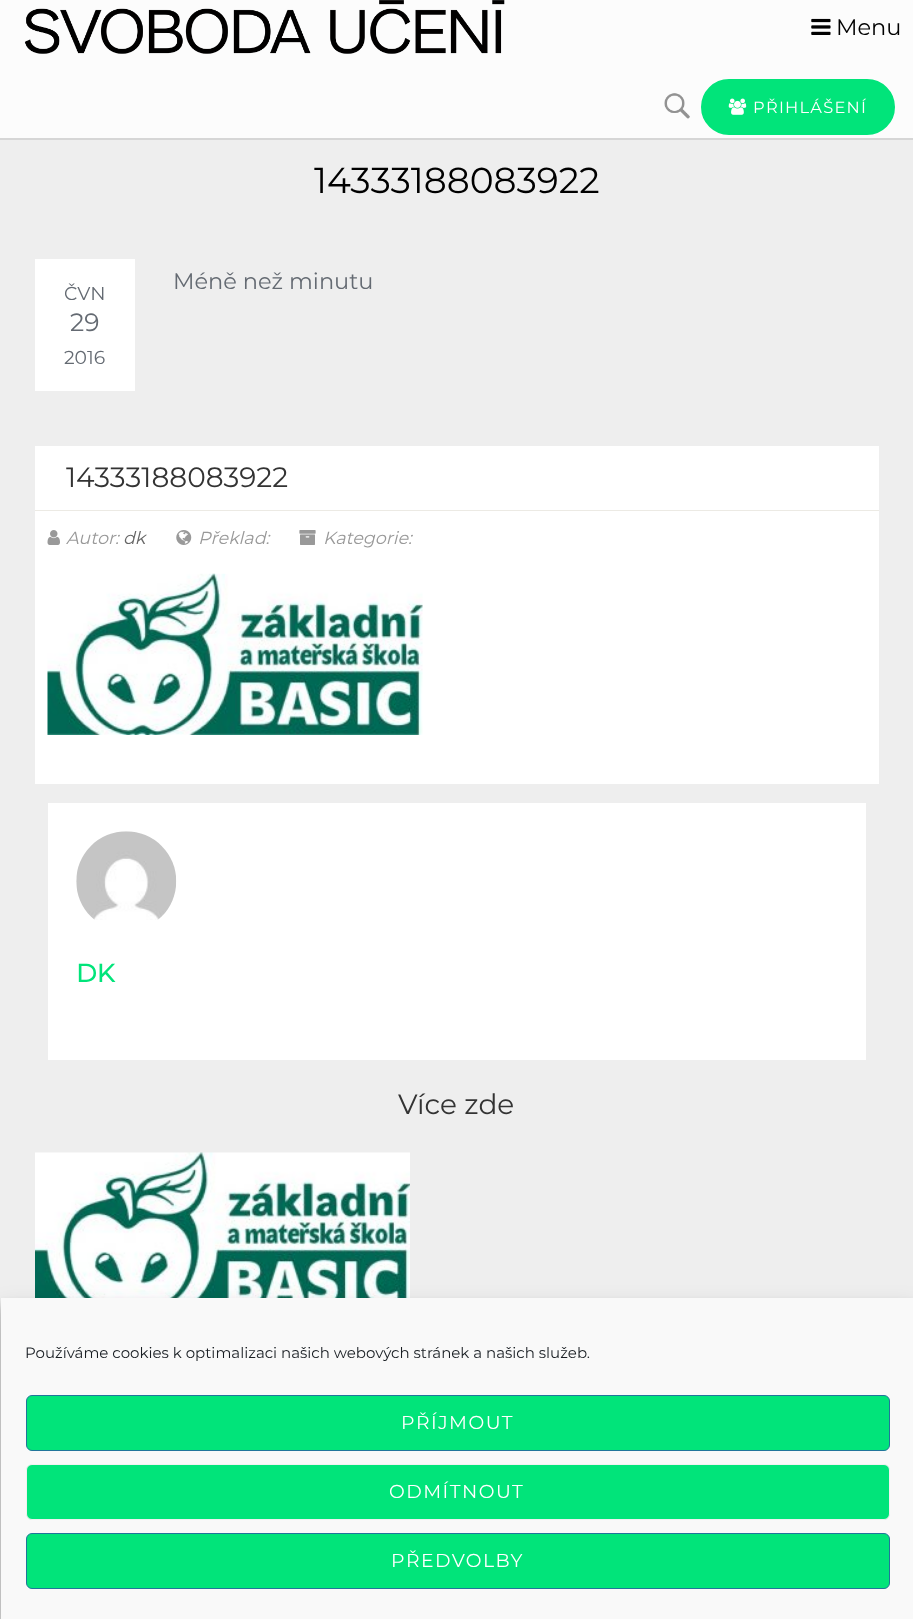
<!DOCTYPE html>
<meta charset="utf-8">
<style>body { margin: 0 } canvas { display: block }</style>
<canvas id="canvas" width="913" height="1619"></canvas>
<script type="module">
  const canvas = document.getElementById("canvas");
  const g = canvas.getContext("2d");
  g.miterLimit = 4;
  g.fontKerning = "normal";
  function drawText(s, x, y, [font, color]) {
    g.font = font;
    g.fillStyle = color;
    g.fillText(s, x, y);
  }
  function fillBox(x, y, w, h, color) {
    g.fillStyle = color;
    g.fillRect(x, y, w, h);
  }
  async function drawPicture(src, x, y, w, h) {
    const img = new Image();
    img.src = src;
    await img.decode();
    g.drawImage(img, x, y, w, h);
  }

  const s1 = ["100 22.5px Montserrat", "#000000"];
  const s2 = ["100 16.25px Montserrat", "#FFFFFF"];
  const s3 = ["100 36px Montserrat", "#000000"];
  const s4 = ["100 22.5px Montserrat", "#646A72"];
  const s5 = ["100 18.75px Montserrat", "#646A72"];
  const s6 = ["100 25px Montserrat", "#646A72"];
  const s7 = ["100 28px Montserrat", "#333333"];
  const s8 = ["italic 100 17.5px Montserrat", "#999999"];
  const s9 = ["italic 100 17.5px Montserrat", "#666666"];
  const s10 = ["bold 25px Montserrat", "#01E47A"];
  const s11 = ["100 15px Montserrat", "#191E23"];
  const s12 = ["100 18.75px Montserrat", "#FFFFFF"];

  fillBox(0, 0, 913, 1619, "#EEEEEE");
  g.fillStyle = "#D6D6D6";
  g.beginPath();
  g.moveTo(0, 138);
  g.lineTo(0, 140);
  g.lineTo(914, 140);
  g.lineTo(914, 3);
  g.lineTo(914, 138);
  g.closePath();
  g.fill();
  fillBox(0, 0, 913, 138, "#FCFCFC");
  await drawPicture("pic1.png", 24, 0, 481, 54);
  await drawPicture("pic2.png", 811, 18, 20, 17);
  drawText("Menu", 836, 35, s1);
  await drawPicture("pic3.png", 664, 93, 26, 26);
  g.fillStyle = "#01E47A";
  g.beginPath();
  g.roundRect(702.5, 80.5, 191, 53, 26.5);
  g.fill();
  g.strokeStyle = "#01E47A";
  g.lineWidth = 3;
  g.stroke();
  await drawPicture("pic4.png", 728, 98, 19, 17);
  g.letterSpacing = "1.25px";
  drawText("PŘIHLÁŠENÍ", 753, 113, s2);
  g.letterSpacing = "0px";
  drawText("14333188083922", 314, 193, s3);
  drawText("Méně než minutu", 173, 289, s4);
  fillBox(35, 259, 100, 132, "#FFFFFF");
  drawText("ČVN", 64, 300, s5);
  drawText("29", 70, 331, s6);
  drawText("2016", 64, 364, s5);
  fillBox(35, 446, 844, 64, "#FFFFFF");
  fillBox(35, 510, 844, 1, "#ECEAE4");
  drawText("14333188083922", 66, 487, s7);
  fillBox(35, 511, 844, 273, "#FFFFFF");
  await drawPicture("pic5.png", 47, 530, 13, 15);
  drawText("Autor:", 66, 544, s8);
  drawText("dk", 123, 544, s9);
  await drawPicture("pic6.png", 176, 530, 16, 15);
  drawText("Překlad:", 198, 544, s8);
  await drawPicture("pic7.png", 299, 530, 17, 15);
  drawText("Kategorie:", 323, 544, s8);
  await drawPicture("pic8.png", 47, 573, 376, 162);
  fillBox(48, 803, 818, 257, "#FFFFFF");
  await drawPicture("pic9.png", 76, 831, 101, 89);
  drawText("DK", 76, 982, s10);
  drawText("Více zde", 398, 1114, s7);
  await drawPicture("pic10.png", 35, 1152, 375, 146);
  g.fillStyle = "rgba(0, 0, 0, 0.23)";
  g.filter = "blur(4px)";
  g.beginPath();
  g.rect(1, 1305, 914, 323);
  g.fill();
  g.filter = "none";
  g.fillStyle = "rgba(0, 0, 0, 0.19)";
  g.filter = "blur(12.5px)";
  g.beginPath();
  g.rect(1, 1310, 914, 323);
  g.fill();
  g.filter = "none";
  fillBox(1, 1298, 912, 321, "#F9F9F9");
  drawText("Používáme cookies k optimalizaci našich webových stránek a našich služeb.", 25, 1358, s11);
  g.fillStyle = "#01E47A";
  g.beginPath();
  g.roundRect(26.5, 1395.5, 863, 55, 5.5);
  g.fill();
  g.strokeStyle = "#21759B";
  g.lineWidth = 1;
  g.stroke();
  g.letterSpacing = "1.5px";
  drawText("PŘÍJMOUT", 401, 1429, s12);
  g.fillStyle = "#01E47A";
  g.beginPath();
  g.roundRect(26.5, 1464.5, 863, 55, 5.5);
  g.fill();
  g.strokeStyle = "#F1F1F1";
  g.stroke();
  drawText("ODMÍTNOUT", 389, 1498, s12);
  g.fillStyle = "#01E47A";
  g.beginPath();
  g.roundRect(26.5, 1533.5, 863, 55, 5.5);
  g.fill();
  g.strokeStyle = "#21759B";
  g.stroke();
  drawText("PŘEDVOLBY", 391, 1567, s12);
</script>
